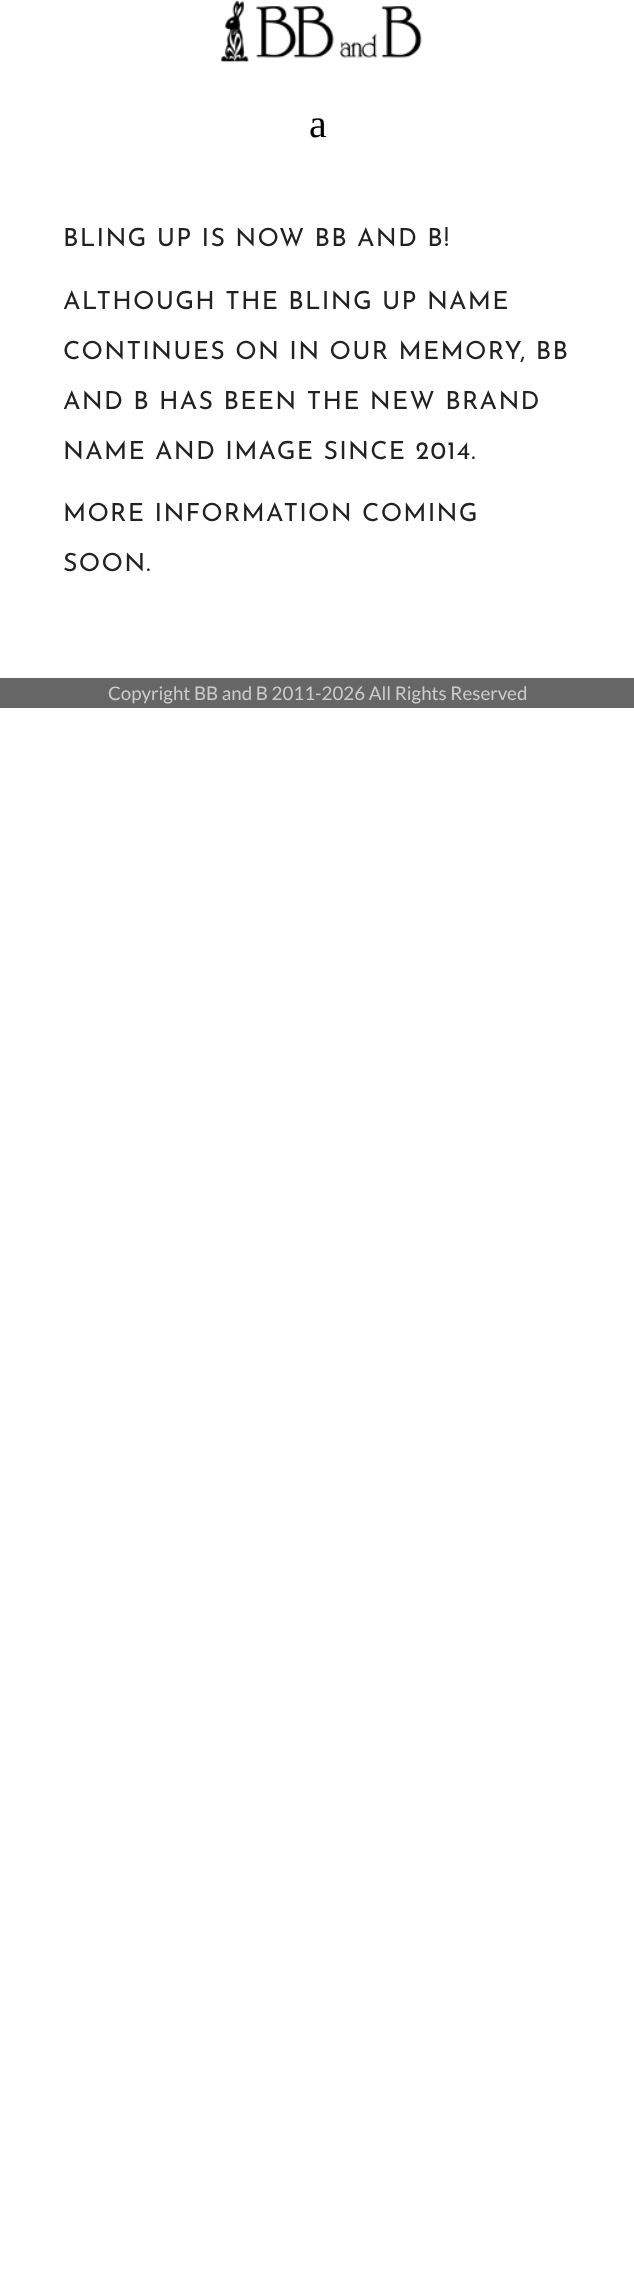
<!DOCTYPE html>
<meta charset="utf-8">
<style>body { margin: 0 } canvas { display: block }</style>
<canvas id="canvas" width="634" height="2281"></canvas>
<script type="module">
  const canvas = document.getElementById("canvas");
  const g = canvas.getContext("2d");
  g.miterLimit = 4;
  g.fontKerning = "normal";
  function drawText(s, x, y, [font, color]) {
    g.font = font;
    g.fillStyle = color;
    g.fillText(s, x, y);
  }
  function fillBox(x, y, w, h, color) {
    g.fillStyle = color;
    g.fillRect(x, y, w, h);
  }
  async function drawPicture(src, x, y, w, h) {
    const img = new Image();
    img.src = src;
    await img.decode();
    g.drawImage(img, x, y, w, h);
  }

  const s1 = ["40px Liberation Serif", "#000000"];
  const s2 = ["25px Josefin Sans", "#222222"];
  const s3 = ["18.75px Lato", "#CCCCCC"];

  fillBox(0, 0, 634, 2281, "#FFFFFF");
  await drawPicture("pic1.png", 221, 0, 201, 62);
  drawText("a", 309, 137, s1);
  g.letterSpacing = "1.25px";
  drawText("BLING UP IS NOW BB AND B!", 63, 246, s2);
  drawText("ALTHOUGH THE BLING UP NAME", 63, 309, s2);
  drawText("CONTINUES ON IN OUR MEMORY, BB", 63, 359, s2);
  drawText("AND B HAS BEEN THE NEW BRAND", 63, 409, s2);
  drawText("NAME AND IMAGE SINCE 2014.", 63, 459, s2);
  drawText("MORE INFORMATION COMING", 63, 521, s2);
  drawText("SOON.", 63, 571, s2);
  fillBox(0, 678, 634, 30, "#666666");
  g.letterSpacing = "0px";
  drawText("Copyright BB and B 2011-2026 All Rights Reserved", 108, 700, s3);
</script>
